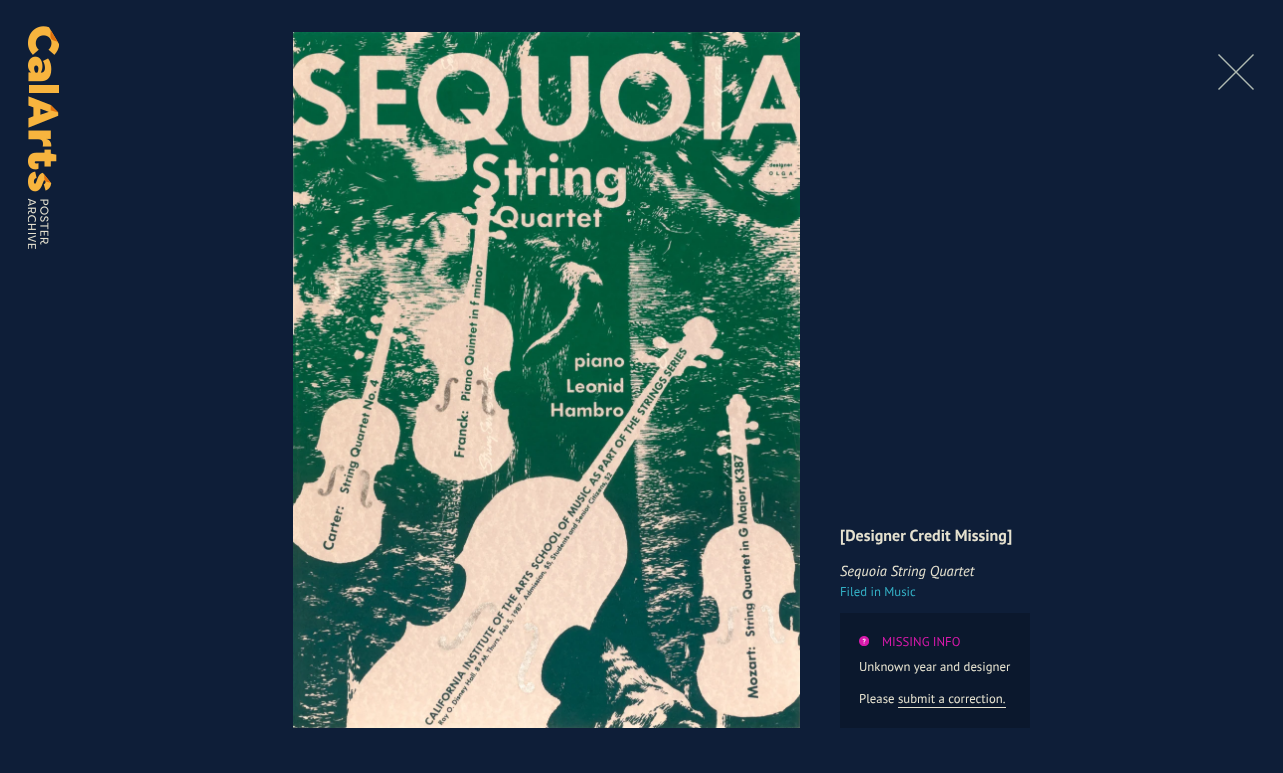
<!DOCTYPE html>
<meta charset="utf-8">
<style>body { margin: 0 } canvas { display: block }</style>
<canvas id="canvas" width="1283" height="773"></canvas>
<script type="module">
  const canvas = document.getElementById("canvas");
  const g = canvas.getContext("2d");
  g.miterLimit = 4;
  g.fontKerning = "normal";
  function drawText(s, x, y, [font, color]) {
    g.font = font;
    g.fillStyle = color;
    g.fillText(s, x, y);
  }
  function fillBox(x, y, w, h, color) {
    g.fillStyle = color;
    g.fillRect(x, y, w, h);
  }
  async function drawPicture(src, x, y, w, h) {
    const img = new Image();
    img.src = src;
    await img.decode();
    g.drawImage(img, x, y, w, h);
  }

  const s1 = ["bold 16px PT Sans", "#E5E1CF"];
  const s2 = ["italic 14.5px PT Sans", "#E5E1CF"];
  const s3 = ["12.75px PT Sans", "#33AFC4"];
  const s4 = ["12.75px PT Sans", "#D819AB"];
  const s5 = ["12.75px PT Sans", "#E5E1CF"];

  fillBox(0, 0, 1283, 773, "#0E1E38");
  await drawPicture("pic1.png", 27, 26, 32, 223);
  g.fillStyle = "#AFBAB1";
  g.beginPath();
  g.moveTo(1254, 55);
  g.lineTo(1253, 54);
  g.lineTo(1236, 71);
  g.lineTo(1219, 54);
  g.lineTo(1218, 55);
  g.lineTo(1235, 72);
  g.lineTo(1218, 89);
  g.lineTo(1219, 90);
  g.lineTo(1236, 73);
  g.lineTo(1253, 90);
  g.lineTo(1254, 89);
  g.lineTo(1237, 72);
  g.closePath();
  g.fill();
  await drawPicture("pic2.png", 293, 32, 507, 696);
  drawText("[Designer Credit Missing]", 840, 541, s1);
  drawText("Sequoia String Quartet", 840, 576, s2);
  drawText("Filed in Music", 840, 596, s3);
  fillBox(840, 613, 190, 115, "#0B182D");
  await drawPicture("pic3.png", 859, 636, 10, 10);
  drawText("MISSING INFO", 882, 646, s4);
  drawText("Unknown year and designer", 859, 671, s5);
  drawText("Please submit a correction.", 859, 703, s5);
  fillBox(898, 707, 108, 1, "#E5E1CF");
</script>
